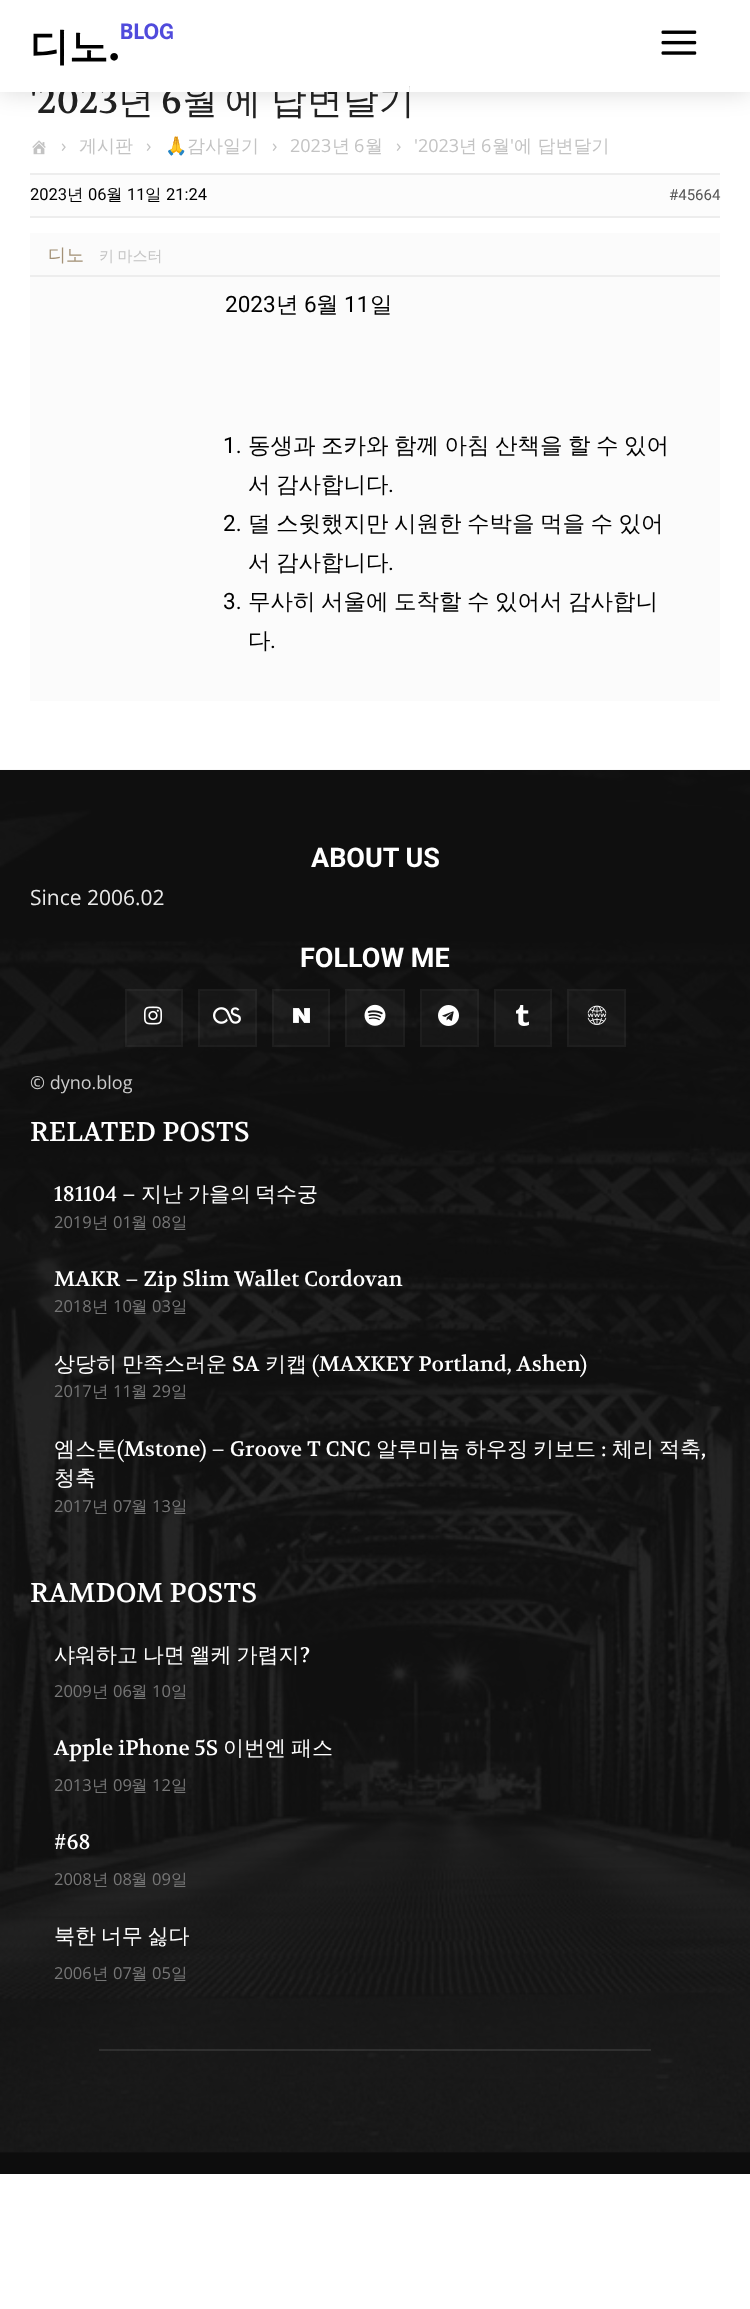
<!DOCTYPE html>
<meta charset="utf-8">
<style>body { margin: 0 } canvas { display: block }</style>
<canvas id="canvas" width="750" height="2309"></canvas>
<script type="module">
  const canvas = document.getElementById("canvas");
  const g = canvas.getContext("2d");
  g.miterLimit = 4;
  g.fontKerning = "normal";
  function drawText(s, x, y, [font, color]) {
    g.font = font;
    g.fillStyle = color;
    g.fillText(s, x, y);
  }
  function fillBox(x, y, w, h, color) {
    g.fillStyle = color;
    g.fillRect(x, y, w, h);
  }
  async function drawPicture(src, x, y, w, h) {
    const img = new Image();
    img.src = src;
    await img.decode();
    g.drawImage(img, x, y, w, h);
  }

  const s1 = ["36px Volkhov", "#222222"];
  const s2 = ["500 36px WenQuanYi Zen Hei", "#222222"];
  const s3 = ["bold 39px WenQuanYi Zen Hei", "#000000"];
  const s4 = ["900 39px Epilogue", "#000000"];
  const s5 = ["bold 21px Epilogue", "#504BDC"];
  const s6 = ["18px Open Sans", "#C3C3C3"];
  const s7 = ["500 18px WenQuanYi Zen Hei", "#C3C3C3"];
  const s8 = ["18px Noto Color Emoji", "#C3C3C3"];
  const s9 = ["16.5px Roboto", "#000000"];
  const s10 = ["500 16.5px WenQuanYi Zen Hei", "#000000"];
  const s11 = ["15px Roboto", "#555555"];
  const s12 = ["500 18px WenQuanYi Zen Hei", "#A39176"];
  const s13 = ["500 15px WenQuanYi Zen Hei", "#C3C3C3"];
  const s14 = ["22.5px Roboto", "#000000"];
  const s15 = ["500 22.5px WenQuanYi Zen Hei", "#000000"];
  const s16 = ["bold 27px Roboto", "#FFFFFF"];
  const s17 = ["21px Open Sans", "#EAEAEA"];
  const s18 = ["18px Open Sans", "#CCCCCC"];
  const s19 = ["27px Volkhov", "#FFFFFF"];
  const s20 = ["21px Volkhov", "#FFFFFF"];
  const s21 = ["500 21px WenQuanYi Zen Hei", "#FFFFFF"];
  const s22 = ["16.5px Open Sans", "#767676"];
  const s23 = ["500 16.5px WenQuanYi Zen Hei", "#767676"];

  fillBox(0, 0, 750, 2309, "#FFFFFF");
  await drawPicture("pic1.png", 661, 30, 36, 25);
  drawText("'2023", 30, 113, s1);
  drawText("년", 118, 113, s2);
  drawText("6", 161, 113, s1);
  drawText("월", 182, 113, s2);
  g.wordSpacing = "-1px";
  drawText("에 답변달기", 225, 113, s2);
  fillBox(31, 86, 378, 6, "#FFFFFF");
  g.save();
  g.beginPath();
  g.moveTo(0, 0);
  g.lineTo(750, 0);
  g.lineTo(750, 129);
  g.lineTo(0, 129);
  g.closePath();
  g.moveTo(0, 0);
  g.lineTo(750, 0);
  g.lineTo(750, 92);
  g.lineTo(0, 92);
  g.closePath();
  g.clip("evenodd");
  g.fillStyle = "rgba(0, 0, 0, 0.15)";
  g.filter = "blur(12px)";
  g.beginPath();
  g.rect(0, 0, 750, 92);
  g.fill();
  g.filter = "none";
  g.restore();
  g.wordSpacing = "0px";
  drawText("디노", 30, 60, s3);
  drawText(".", 108, 60, s4);
  drawText("BLOG", 120, 39, s5);
  await drawPicture("pic2.png", 32, 140, 14, 15);
  drawText("›", 61, 152, s6);
  drawText("게시판", 79, 152, s7);
  drawText("›", 146, 152, s6);
  drawText("🙏", 165, 152, s8);
  drawText("감사일기", 187, 152, s7);
  drawText("›", 272, 152, s6);
  drawText("2023", 290, 152, s6);
  drawText("년", 332, 152, s7);
  drawText("6", 354, 152, s6);
  drawText("월", 365, 152, s7);
  drawText("›", 396, 152, s6);
  drawText("'2023", 414, 152, s6);
  drawText("년", 459, 152, s7);
  drawText("6", 481, 152, s6);
  drawText("월", 492, 152, s7);
  drawText("'", 510, 152, s6);
  drawText("에 답변달기", 514, 152, s7);
  fillBox(30, 175, 690, 41, "#FCFCFC");
  fillBox(30, 173, 690, 2, "#EDEDED");
  fillBox(30, 216, 690, 2, "#EDEDED");
  drawText("2023", 30, 200, s9);
  drawText("년", 67, 200, s10);
  drawText("06", 88, 200, s9);
  drawText("월", 106, 200, s10);
  drawText("11", 127, 200, s9);
  drawText("일", 145, 200, s10);
  drawText("21:24", 166, 200, s9);
  drawText("#45664", 669, 200, s11);
  fillBox(30, 233, 690, 468, "#FBFBFB");
  fillBox(30, 275, 690, 2, "#EDEDED");
  drawText("디노", 48, 261, s12);
  g.wordSpacing = "-1px";
  drawText("키 마스터", 99, 261, s13);
  g.wordSpacing = "0px";
  drawText("2023", 225, 312, s14);
  drawText("년", 276, 312, s15);
  drawText("6", 304, 312, s14);
  drawText("월", 316, 312, s15);
  drawText("11", 344, 312, s14);
  drawText("일", 370, 312, s15);
  drawText("1.", 223, 453, s14);
  g.wordSpacing = "-1.25px";
  drawText("동생과 조카와 함께 아침 산책을 할 수 있어", 248, 453, s15);
  drawText("서 감사합니다", 248, 492, s15);
  g.wordSpacing = "0px";
  drawText(".", 388, 492, s14);
  drawText("2.", 223, 531, s14);
  g.wordSpacing = "-1.25px";
  drawText("덜 스윗했지만 시원한 수박을 먹을 수 있어", 248, 531, s15);
  drawText("서 감사합니다", 248, 570, s15);
  g.wordSpacing = "0px";
  drawText(".", 388, 570, s14);
  drawText("3.", 223, 609, s14);
  g.wordSpacing = "-1.25px";
  drawText("무사히 서울에 도착할 수 있어서 감사합니", 248, 609, s15);
  g.wordSpacing = "0px";
  drawText("다", 248, 648, s15);
  drawText(".", 270, 648, s14);
  fillBox(0, 770, 750, 1383, "#111111");
  await drawPicture("pic3.png", 0, 769, 750, 1383);
  drawText("ABOUT US", 311, 867, s16);
  drawText("Since 2006.02", 30, 905, s17);
  drawText("FOLLOW ME", 300, 967, s16);
  fillBox(125, 989, 58, 58, "rgba(255, 255, 255, 0.03)");
  g.strokeStyle = "rgba(255, 255, 255, 0.03)";
  g.lineWidth = 2;
  g.strokeRect(126, 990, 56, 56);
  await drawPicture("pic4.png", 144, 1006, 18, 19);
  fillBox(198, 989, 59, 58, "rgba(255, 255, 255, 0.03)");
  g.strokeRect(199, 990, 57, 56);
  await drawPicture("pic5.png", 213, 1007, 28, 17);
  fillBox(272, 989, 58, 58, "rgba(255, 255, 255, 0.03)");
  g.strokeRect(273, 990, 56, 56);
  await drawPicture("pic6.png", 293, 1008, 17, 15);
  fillBox(345, 989, 60, 58, "rgba(255, 255, 255, 0.03)");
  g.strokeRect(346, 990, 58, 56);
  await drawPicture("pic7.png", 364, 1004, 22, 22);
  fillBox(420, 989, 59, 58, "rgba(255, 255, 255, 0.03)");
  g.strokeRect(421, 990, 57, 56);
  await drawPicture("pic8.png", 438, 1005, 21, 21);
  fillBox(494, 989, 58, 58, "rgba(255, 255, 255, 0.03)");
  g.strokeRect(495, 990, 56, 56);
  await drawPicture("pic9.png", 516, 1005, 13, 21);
  fillBox(567, 989, 59, 58, "rgba(255, 255, 255, 0.03)");
  g.strokeRect(568, 990, 57, 56);
  await drawPicture("pic10.png", 587, 1005, 20, 20);
  drawText("© dyno.blog", 30, 1089, s18);
  drawText("RELATED POSTS", 30, 1141, s19);
  drawText("181104 –", 54, 1201, s20);
  drawText("지난", 141, 1201, s21);
  drawText("가을의", 188, 1201, s21);
  drawText("덕수궁", 255, 1201, s21);
  drawText("2019", 54, 1228, s22);
  drawText("년", 92, 1228, s23);
  drawText("01", 113, 1228, s22);
  drawText("월", 131, 1228, s23);
  drawText("08", 152, 1228, s22);
  drawText("일", 171, 1228, s23);
  drawText("MAKR – Zip Slim Wallet Cordovan", 54, 1286, s20);
  drawText("2018", 54, 1312, s22);
  drawText("년", 92, 1312, s23);
  drawText("10", 113, 1312, s22);
  drawText("월", 131, 1312, s23);
  drawText("03", 152, 1312, s22);
  drawText("일", 171, 1312, s23);
  drawText("상당히", 54, 1371, s21);
  drawText("만족스러운", 122, 1371, s21);
  drawText("SA", 232, 1371, s20);
  drawText("키캡", 265, 1371, s21);
  drawText("(MAXKEY Portland, Ashen)", 312, 1371, s20);
  drawText("2017", 54, 1397, s22);
  drawText("년", 92, 1397, s23);
  drawText("11", 113, 1397, s22);
  drawText("월", 131, 1397, s23);
  drawText("29", 152, 1397, s22);
  drawText("일", 171, 1397, s23);
  drawText("엠스톤", 54, 1456, s21);
  drawText("(Mstone) – Groove T CNC", 117, 1456, s20);
  drawText("알루미늄", 376, 1456, s21);
  drawText("하우징", 465, 1456, s21);
  drawText("키보드", 533, 1456, s21);
  drawText(":", 601, 1456, s20);
  drawText("체리", 612, 1456, s21);
  drawText("적축", 659, 1456, s21);
  drawText(",", 701, 1456, s20);
  drawText("청축", 54, 1485, s21);
  drawText("2017", 54, 1512, s22);
  drawText("년", 92, 1512, s23);
  drawText("07", 113, 1512, s22);
  drawText("월", 131, 1512, s23);
  drawText("13", 152, 1512, s22);
  drawText("일", 171, 1512, s23);
  drawText("RAMDOM POSTS", 30, 1602, s19);
  g.wordSpacing = "-1.5px";
  drawText("샤워하고 나면 왤케 가렵지", 54, 1662, s21);
  g.wordSpacing = "0px";
  drawText("?", 300, 1662, s20);
  drawText("2009", 54, 1697, s22);
  drawText("년", 92, 1697, s23);
  drawText("06", 113, 1697, s22);
  drawText("월", 131, 1697, s23);
  drawText("10", 152, 1697, s22);
  drawText("일", 171, 1697, s23);
  drawText("Apple iPhone 5S", 54, 1755, s20);
  drawText("이번엔", 223, 1755, s21);
  drawText("패스", 291, 1755, s21);
  drawText("2013", 54, 1791, s22);
  drawText("년", 92, 1791, s23);
  drawText("09", 113, 1791, s22);
  drawText("월", 131, 1791, s23);
  drawText("12", 152, 1791, s22);
  drawText("일", 171, 1791, s23);
  drawText("#68", 54, 1849, s20);
  drawText("2008", 54, 1885, s22);
  drawText("년", 92, 1885, s23);
  drawText("08", 113, 1885, s22);
  drawText("월", 131, 1885, s23);
  drawText("09", 152, 1885, s22);
  drawText("일", 171, 1885, s23);
  g.wordSpacing = "-1.5px";
  drawText("북한 너무 싫다", 54, 1943, s21);
  g.wordSpacing = "0px";
  drawText("2006", 54, 1979, s22);
  drawText("년", 92, 1979, s23);
  drawText("07", 113, 1979, s22);
  drawText("월", 131, 1979, s23);
  drawText("05", 152, 1979, s22);
  drawText("일", 171, 1979, s23);
  fillBox(99, 2049, 552, 2, "rgba(255, 255, 255, 0.1)");
  fillBox(0, 2153, 750, 21, "#0D0D0D");
</script>
